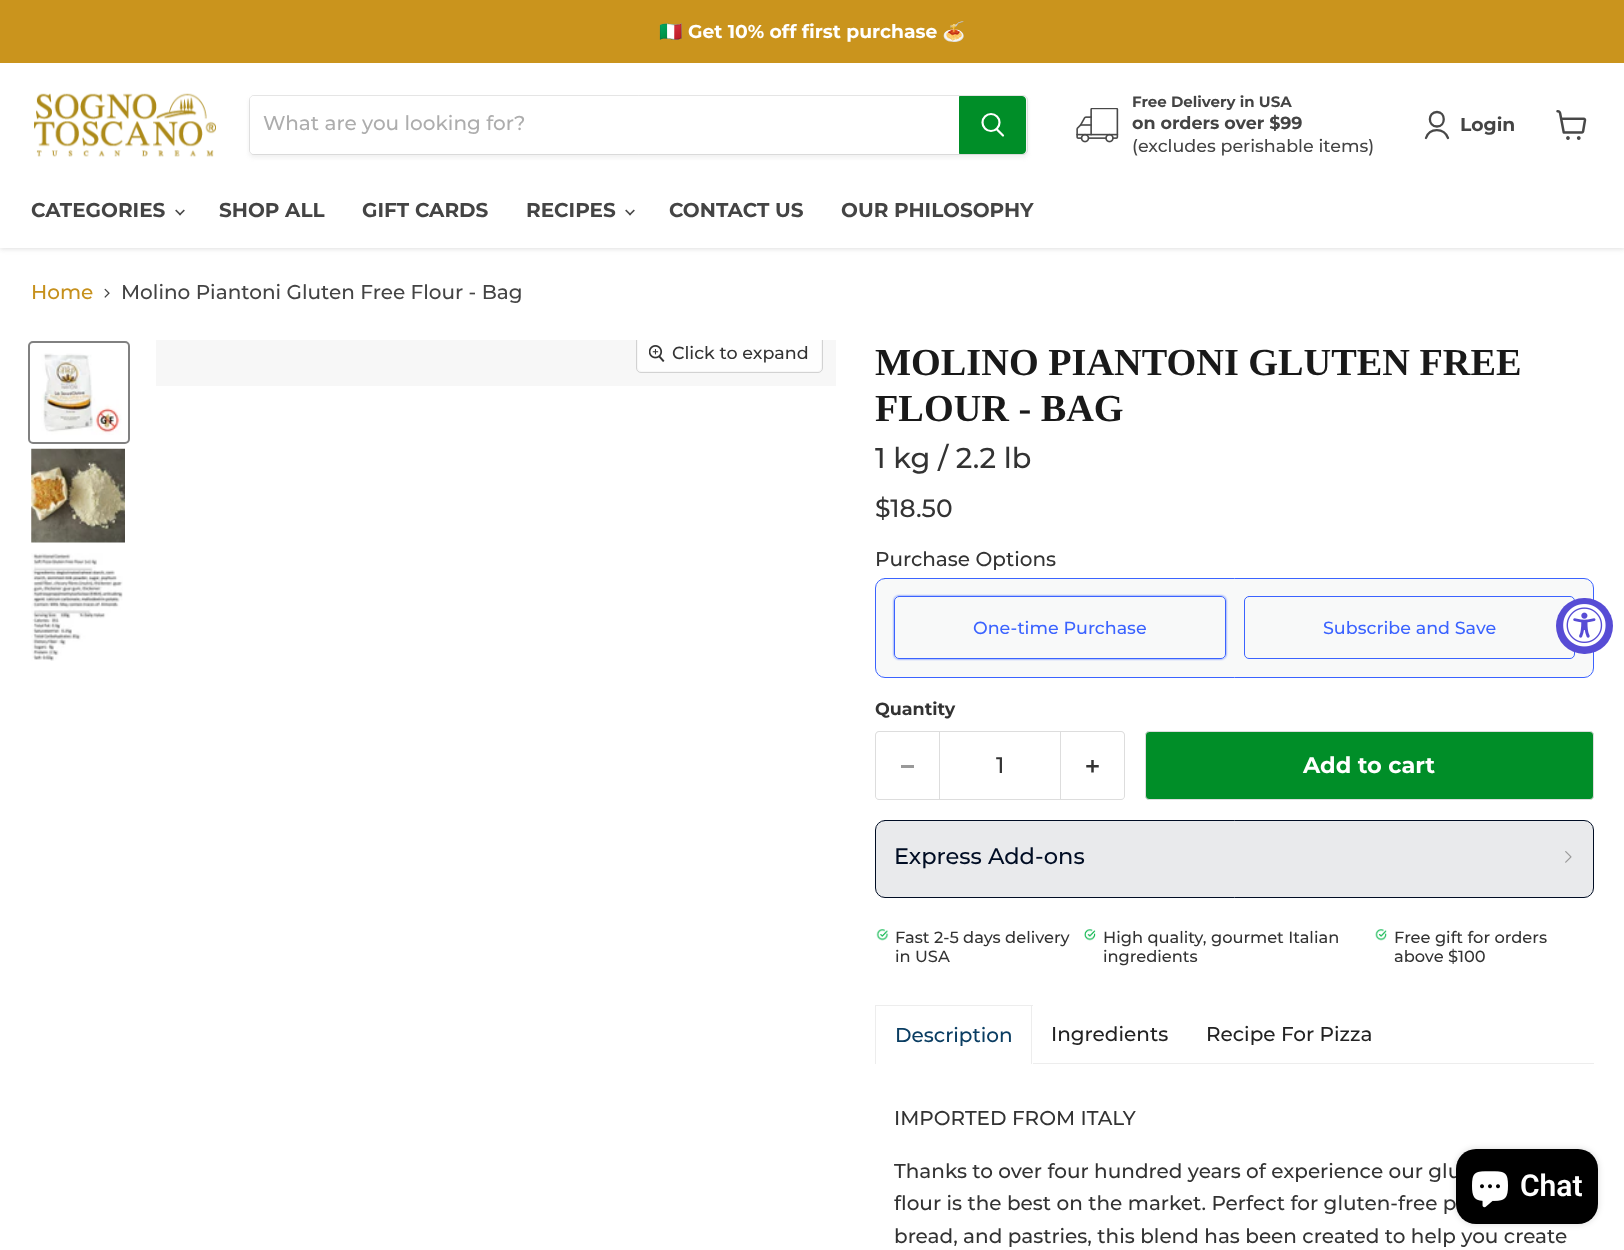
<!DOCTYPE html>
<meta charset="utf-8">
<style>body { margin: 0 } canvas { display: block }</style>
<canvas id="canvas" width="1624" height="1250"></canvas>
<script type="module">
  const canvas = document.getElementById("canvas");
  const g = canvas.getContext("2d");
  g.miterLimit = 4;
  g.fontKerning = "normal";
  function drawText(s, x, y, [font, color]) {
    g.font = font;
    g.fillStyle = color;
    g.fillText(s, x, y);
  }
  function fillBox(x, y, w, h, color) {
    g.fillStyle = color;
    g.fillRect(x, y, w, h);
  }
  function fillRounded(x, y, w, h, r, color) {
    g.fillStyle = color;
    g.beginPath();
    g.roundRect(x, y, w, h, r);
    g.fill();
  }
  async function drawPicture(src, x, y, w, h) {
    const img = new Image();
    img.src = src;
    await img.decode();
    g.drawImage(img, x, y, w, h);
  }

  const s1 = ["bold 18.75px Noto Color Emoji", "#FFFFFF"];
  const s2 = ["bold 18.75px Montserrat", "#FFFFFF"];
  const s3 = ["500 20px Montserrat", "#ADADAD"];
  const s4 = ["bold 15px Montserrat", "#444444"];
  const s5 = ["bold 17.5px Montserrat", "#444444"];
  const s6 = ["500 17.5px Montserrat", "#444444"];
  const s7 = ["bold 18.75px Montserrat", "#444444"];
  const s8 = ["bold 20px Montserrat", "#444444"];
  const s9 = ["500 20px Montserrat", "#C6901C"];
  const s10 = ["500 20px Montserrat", "#444444"];
  const s11 = ["500 17.5px Montserrat", "#333333"];
  const s12 = ["bold 38.25px Liberation Serif", "#191919"];
  const s13 = ["500 28.75px Montserrat", "#333333"];
  const s14 = ["500 25px Montserrat", "#333333"];
  const s15 = ["500 20px Montserrat", "#333333"];
  const s16 = ["500 17.5px Montserrat", "#3B63FF"];
  const s17 = ["bold 17.5px Montserrat", "#333333"];
  const s18 = ["500 22.5px Montserrat", "#333333"];
  const s19 = ["bold 22.5px Montserrat", "#FFFFFF"];
  const s20 = ["500 22.5px Montserrat", "#000D24"];
  const s21 = ["500 16.25px Montserrat", "#333333"];
  const s22 = ["500 20px Montserrat", "#0A3D62"];
  const s23 = ["500 20px Montserrat", "#222222"];
  const s24 = ["600 30px Roboto", "#FFFFFF"];

  fillBox(0, 0, 1624, 1250, "#FFFFFF");
  g.fillStyle = "rgba(128, 128, 128, 0.25)";
  g.filter = "blur(2.5px)";
  g.beginPath();
  g.rect(0, 64, 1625, 185);
  g.fill();
  g.filter = "none";
  fillBox(0, 0, 1624, 63, "#CA941D");
  drawText("🇮🇹", 659, 38, s1);
  drawText("Get 10% off first purchase", 688, 38, s2);
  drawText("🍝", 942, 38, s1);
  fillBox(0, 63, 1624, 185, "#FFFFFF");
  await drawPicture("pic1.png", 34, 93, 182, 64);
  g.fillStyle = "rgba(128, 128, 128, 0.11)";
  g.filter = "blur(2px)";
  g.beginPath();
  g.roundRect(249, 98, 779, 60, 5);
  g.fill();
  g.filter = "none";
  g.beginPath();
  g.roundRect(249.5, 95.5, 778, 59, 4.5);
  g.strokeStyle = "rgba(128, 128, 128, 0.2)";
  g.stroke();
  g.fillStyle = "#FFFFFF";
  g.beginPath();
  g.roundRect(250, 96, 709, 58, [4, 0, 0, 4]);
  g.fill();
  drawText("What are you looking for?", 263, 130, s3);
  g.fillStyle = "#008E28";
  g.beginPath();
  g.roundRect(959.5, 96.5, 66, 57, [0, 3.5, 3.5, 0]);
  g.fill();
  g.strokeStyle = "#008E28";
  g.stroke();
  g.beginPath();
  g.moveTo(1003, 135.5);
  g.lineTo(997, 129.5);
  g.strokeStyle = "#FFFFFF";
  g.lineWidth = 2.2;
  g.lineCap = "round";
  g.stroke();
  g.beginPath();
  g.arc(991, 122.5, 8.5, 0, Math.PI * 2);
  g.stroke();
  await drawPicture("pic2.png", 1076, 108, 43, 35);
  drawText("Free Delivery in USA", 1132, 107, s4);
  drawText("on orders over $99", 1132, 129, s5);
  drawText("(excludes perishable items)", 1132, 152, s6);
  g.beginPath();
  g.moveTo(1437, 126.5);
  g.bezierCurveTo(1446, 126.5, 1446, 112, 1437, 112);
  g.bezierCurveTo(1427.5, 112, 1427.5, 126.5, 1437, 126.5);
  g.closePath();
  g.moveTo(1448, 138);
  g.bezierCurveTo(1444, 127.5, 1429.5, 127.5, 1426, 138);
  g.strokeStyle = "#484848";
  g.lineWidth = 2.3;
  g.lineJoin = "round";
  g.stroke();
  drawText("Login", 1460, 131, s7);
  await drawPicture("pic3.png", 1556, 110, 31, 30);
  drawText("CATEGORIES", 31, 217, s8);
  await drawPicture("pic4.png", 175, 209, 10, 7);
  drawText("SHOP ALL", 219, 217, s8);
  drawText("GIFT CARDS", 362, 217, s8);
  drawText("RECIPES", 526, 217, s8);
  await drawPicture("pic4.png", 625, 209, 10, 7);
  drawText("CONTACT US", 669, 217, s8);
  drawText("OUR PHILOSOPHY", 841, 217, s8);
  drawText("Home", 31, 299, s9);
  await drawPicture("pic5.png", 104, 288, 6, 10);
  drawText("Molino Piantoni Gluten Free Flour - Bag", 121, 299, s10);
  g.beginPath();
  g.roundRect(29, 342, 100, 101, 4);
  g.strokeStyle = "#818181";
  g.lineWidth = 2;
  g.lineJoin = "miter";
  g.stroke();
  await drawPicture("pic6.png", 41, 353, 81, 82);
  await drawPicture("pic7.png", 31, 448, 94, 95);
  await drawPicture("pic8.png", 31, 553, 92, 108);
  fillBox(156, 340, 680, 46, "#F7F7F7");
  g.save();
  g.beginPath();
  g.rect(156, 340, 680, 46);
  g.clip();
  g.beginPath();
  g.roundRect(636.5, 335.5, 186, 37, 4.5);
  g.strokeStyle = "#D2D2D2";
  g.lineWidth = 1;
  g.stroke();
  g.restore();
  g.fillStyle = "#FEFEFE";
  g.beginPath();
  g.roundRect(638, 340, 183, 31, [0, 0, 4, 4]);
  g.fill();
  await drawPicture("pic9.png", 649, 345, 16, 17);
  drawText("Click to expand", 672, 359, s11);
  drawText("MOLINO PIANTONI GLUTEN FREE", 875, 375, s12);
  drawText("FLOUR - BAG", 875, 421, s12);
  drawText("1 kg / 2.2 lb", 875, 468, s13);
  drawText("$18.50", 875, 517, s14);
  drawText("Purchase Options", 875, 566, s15);
  g.fillStyle = "#F8F9F9";
  g.beginPath();
  g.roundRect(875.5, 578.5, 718, 99, 9.5);
  g.fill();
  g.strokeStyle = "#3B63FF";
  g.lineWidth = 1;
  g.stroke();
  g.save();
  g.beginPath();
  g.moveTo(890, 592);
  g.lineTo(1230, 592);
  g.lineTo(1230, 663);
  g.lineTo(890, 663);
  g.closePath();
  g.moveTo(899, 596);
  g.lineTo(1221, 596);
  g.bezierCurveTo(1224, 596, 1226, 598, 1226, 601);
  g.lineTo(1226, 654);
  g.bezierCurveTo(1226, 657, 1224, 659, 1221, 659);
  g.lineTo(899, 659);
  g.bezierCurveTo(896, 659, 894, 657, 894, 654);
  g.lineTo(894, 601);
  g.bezierCurveTo(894, 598, 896, 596, 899, 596);
  g.closePath();
  g.clip("evenodd");
  g.fillStyle = "#3B63FF";
  g.filter = "blur(1px)";
  g.beginPath();
  g.roundRect(894, 596, 332, 63, 5);
  g.fill();
  g.filter = "none";
  g.restore();
  g.beginPath();
  g.roundRect(894.5, 596.5, 331, 62, 4.5);
  g.stroke();
  drawText("One-time Purchase", 973, 634, s16);
  g.beginPath();
  g.roundRect(1244.5, 596.5, 330, 62, 4.5);
  g.stroke();
  drawText("Subscribe and Save", 1323, 634, s16);
  drawText("Quantity", 875, 715, s17);
  g.fillStyle = "#DDDDDD";
  g.beginPath();
  g.moveTo(879, 731);
  g.lineTo(939, 731);
  g.lineTo(939, 800);
  g.lineTo(879, 800);
  g.bezierCurveTo(877, 800, 875, 798, 875, 796);
  g.lineTo(875, 735);
  g.bezierCurveTo(875, 733, 877, 731, 879, 731);
  g.closePath();
  g.moveTo(879, 732);
  g.lineTo(939, 732);
  g.lineTo(939, 799);
  g.lineTo(879, 799);
  g.bezierCurveTo(877, 799, 876, 798, 876, 796);
  g.lineTo(876, 735);
  g.bezierCurveTo(876, 734, 877, 732, 879, 732);
  g.closePath();
  g.fill("evenodd");
  fillBox(901, 765, 13, 3, "#999999");
  g.strokeStyle = "#DDDDDD";
  g.strokeRect(939.5, 731.5, 121, 68);
  drawText("1", 996, 773, s18);
  g.fillStyle = "#DDDDDD";
  g.beginPath();
  g.moveTo(1061, 731);
  g.lineTo(1121, 731);
  g.bezierCurveTo(1123, 731, 1125, 733, 1125, 735);
  g.lineTo(1125, 796);
  g.bezierCurveTo(1125, 798, 1123, 800, 1121, 800);
  g.lineTo(1061, 800);
  g.closePath();
  g.moveTo(1061, 732);
  g.lineTo(1121, 732);
  g.bezierCurveTo(1123, 732, 1124, 734, 1124, 735);
  g.lineTo(1124, 796);
  g.bezierCurveTo(1124, 798, 1123, 799, 1121, 799);
  g.lineTo(1061, 799);
  g.closePath();
  g.fill("evenodd");
  await drawPicture("pic10.png", 1086, 760, 13, 13);
  g.fillStyle = "#008E28";
  g.beginPath();
  g.roundRect(1145.5, 731.5, 448, 68, 3.5);
  g.fill();
  g.stroke();
  drawText("Add to cart", 1303, 773, s19);
  g.fillStyle = "#E9EAEC";
  g.beginPath();
  g.roundRect(875.5, 820.5, 718, 77, 9.5);
  g.fill();
  g.strokeStyle = "#000D24";
  g.stroke();
  drawText("Express Add-ons", 894, 864, s20);
  await drawPicture("pic11.png", 1565, 851, 7, 12);
  await drawPicture("pic12.png", 876, 929, 13, 12);
  drawText("Fast 2-5 days delivery", 895, 943, s21);
  drawText("in USA", 895, 962, s21);
  await drawPicture("pic13.png", 1084, 929, 12, 12);
  drawText("High quality, gourmet Italian", 1103, 943, s21);
  drawText("ingredients", 1103, 962, s21);
  await drawPicture("pic14.png", 1375, 929, 12, 12);
  drawText("Free gift for orders", 1394, 943, s21);
  drawText("above $100", 1394, 962, s21);
  fillBox(1033, 1063, 561, 1, "#EDEDED");
  fillBox(875, 1005, 158, 1, "#EDEDED");
  fillBox(1031, 1005, 1, 59, "#EDEDED");
  fillBox(875, 1005, 1, 59, "#EDEDED");
  drawText("Description", 895, 1042, s22);
  drawText("Ingredients", 1051, 1041, s23);
  drawText("Recipe For Pizza", 1206, 1041, s23);
  drawText("IMPORTED FROM ITALY", 894, 1125, s15);
  drawText("Thanks to over four hundred years of experience our glu", 894, 1178, s15);
  drawText("flour is the best on the market. Perfect for gluten-free p", 894, 1210, s15);
  drawText("bread, and pastries, this blend has been created to help you create", 894, 1243, s15);
  fillRounded(1556, 598, 57, 56, 28, "#574CD5");
  await drawPicture("pic15.png", 1563, 604, 43, 43);
  g.fillStyle = "rgba(0, 0, 0, 0.15)";
  g.filter = "blur(3px)";
  g.beginPath();
  g.roundRect(1456, 1149, 142, 75, 20);
  g.fill();
  g.filter = "none";
  fillRounded(1456, 1149, 142, 75, 20, "#000000");
  await drawPicture("pic16.png", 1472, 1171, 36, 37);
  drawText("Chat", 1520, 1196, s24);
</script>
